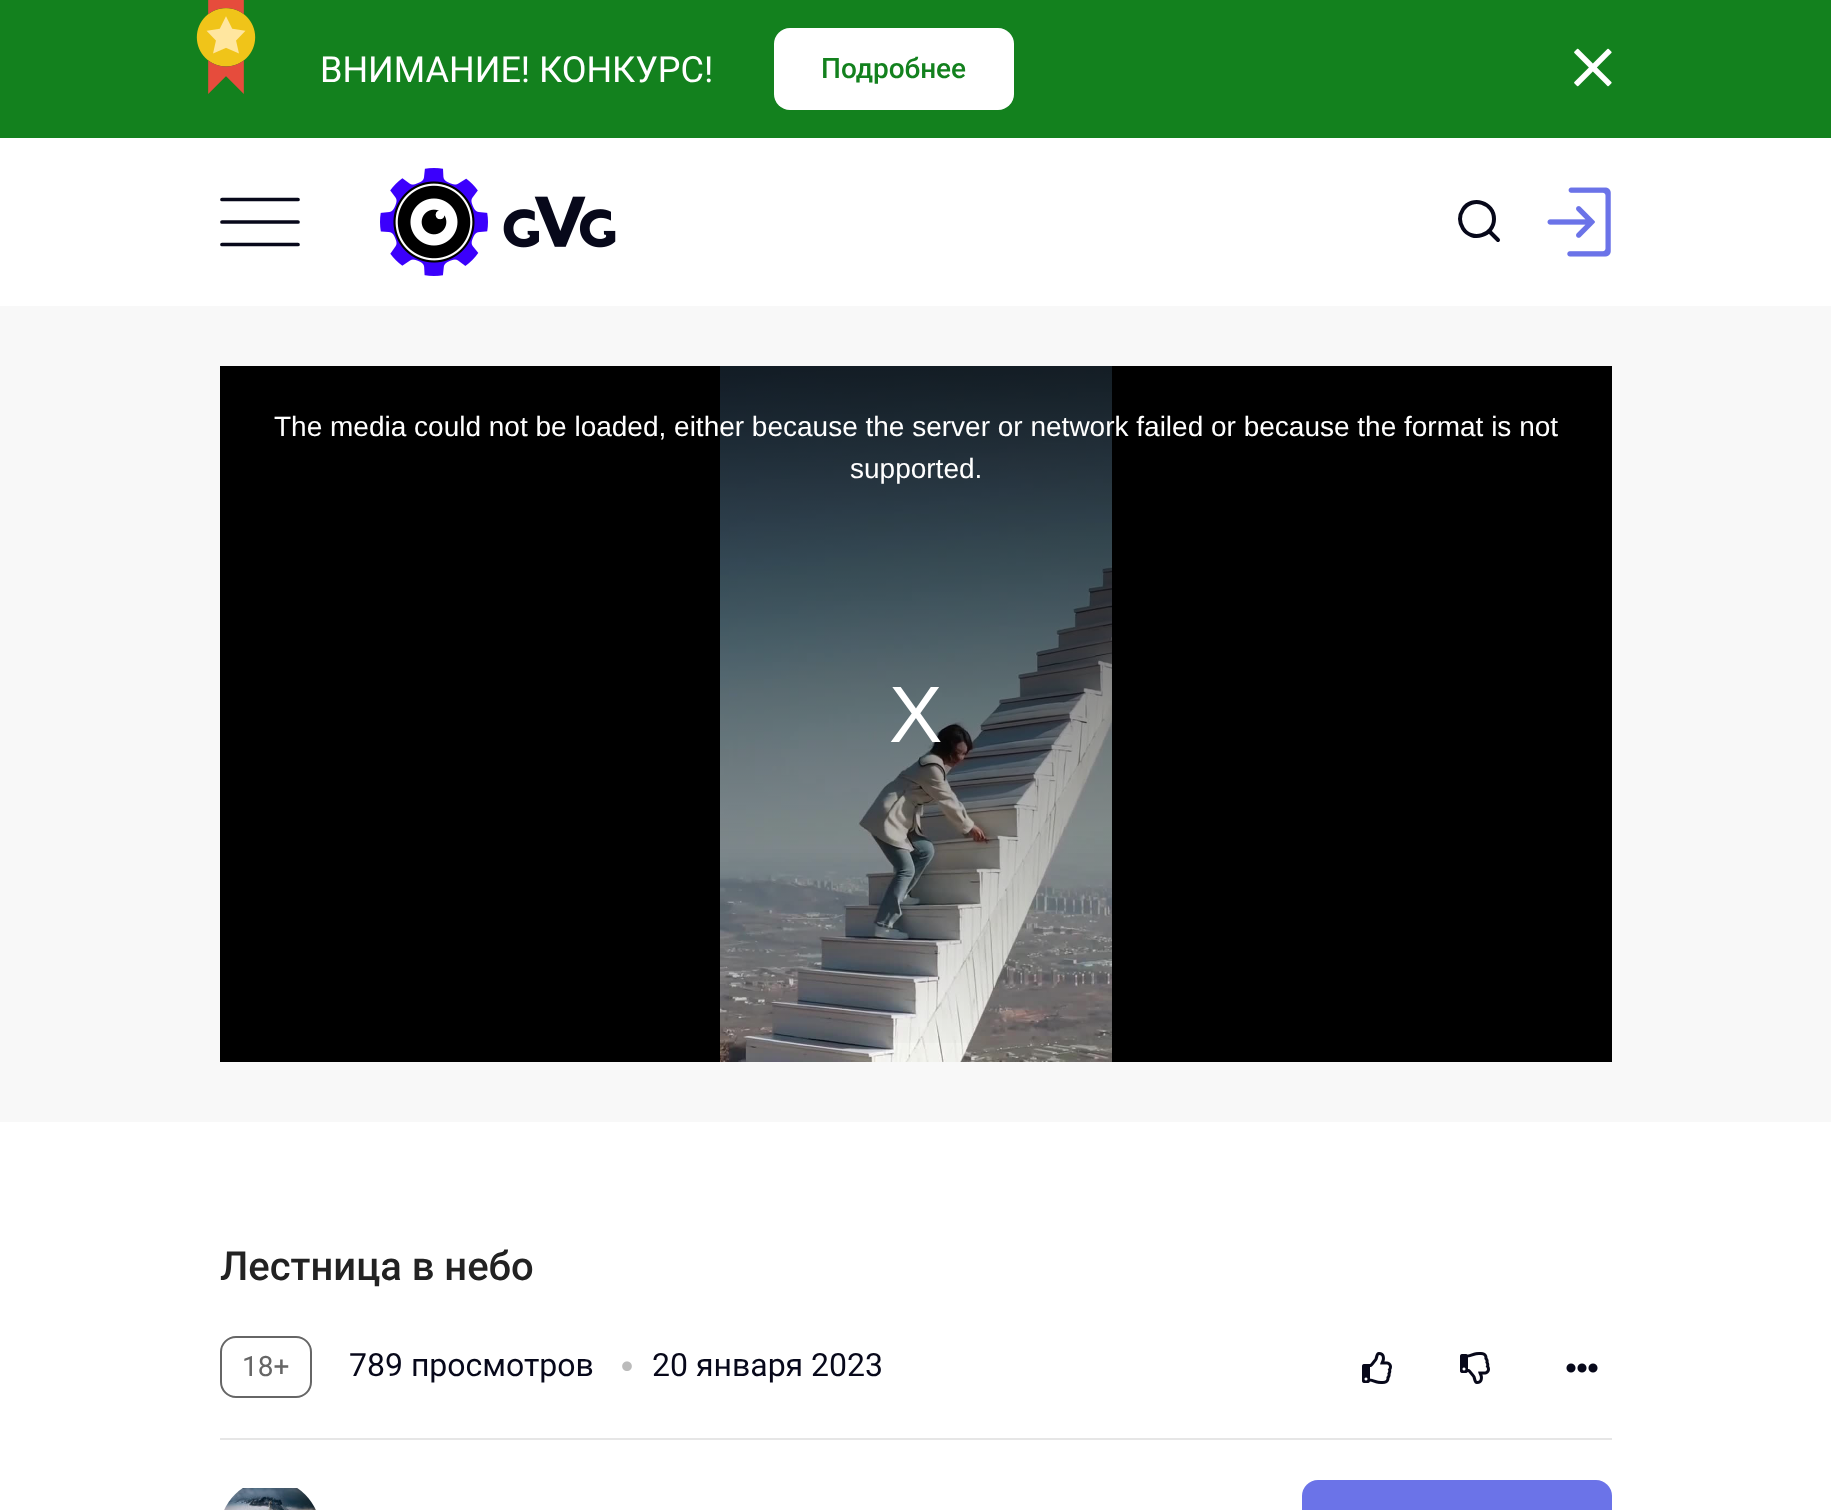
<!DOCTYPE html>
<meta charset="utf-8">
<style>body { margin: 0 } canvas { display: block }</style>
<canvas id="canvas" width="1831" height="1510"></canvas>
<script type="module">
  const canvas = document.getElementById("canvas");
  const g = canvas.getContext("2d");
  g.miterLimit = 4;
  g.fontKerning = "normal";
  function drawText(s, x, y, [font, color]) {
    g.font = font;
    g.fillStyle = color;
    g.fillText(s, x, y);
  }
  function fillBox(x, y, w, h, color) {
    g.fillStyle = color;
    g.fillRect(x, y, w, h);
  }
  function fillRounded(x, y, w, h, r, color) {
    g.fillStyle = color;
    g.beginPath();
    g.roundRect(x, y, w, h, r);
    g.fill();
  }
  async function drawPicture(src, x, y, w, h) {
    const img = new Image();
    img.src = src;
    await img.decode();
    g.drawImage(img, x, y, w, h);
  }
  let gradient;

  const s1 = ["36px Roboto", "#FFFFFF"];
  const s2 = ["500 28px Roboto", "#13811E"];
  const s3 = ["28px Liberation Sans", "#FFFFFF"];
  const s4 = ["80px Liberation Sans", "#FFFFFF"];
  const s5 = ["500 40px Roboto", "#222222"];
  const s6 = ["28px Roboto", "#666666"];
  const s7 = ["32px Roboto", "#07081A"];

  fillBox(0, 0, 1831, 1510, "#FFFFFF");
  fillBox(0, 0, 1831, 138, "#13811E");
  await drawPicture("pic1.png", 196, 0, 60, 94);
  drawText("ВНИМАНИЕ! КОНКУРС!", 320, 82, s1);
  fillRounded(774, 28, 240, 82, 16, "#FFFFFF");
  drawText("Подробнее", 821, 78, s2);
  await drawPicture("pic2.png", 1574, 48, 38, 39);
  g.beginPath();
  g.moveTo(222, 244.5);
  g.lineTo(298, 244.5);
  g.moveTo(222, 199.5);
  g.lineTo(298, 199.5);
  g.closePath();
  g.moveTo(222, 222);
  g.lineTo(298, 222);
  g.closePath();
  g.strokeStyle = "#07081A";
  g.lineWidth = 3.7;
  g.lineCap = "round";
  g.lineJoin = "round";
  g.stroke();
  await drawPicture("pic3.png", 380, 168, 236, 108);
  g.beginPath();
  g.moveTo(1498, 240);
  g.lineTo(1489, 231);
  g.closePath();
  g.moveTo(1494, 219);
  g.bezierCurveTo(1494, 235.5, 1472, 242.5, 1463, 228.5);
  g.bezierCurveTo(1461, 225.5, 1460, 222.5, 1460, 219);
  g.bezierCurveTo(1460, 215.5, 1461, 212.5, 1463, 209.5);
  g.bezierCurveTo(1472, 195.5, 1494, 202.5, 1494, 219);
  g.closePath();
  g.lineWidth = 4;
  g.stroke();
  await drawPicture("pic4.png", 1547, 187, 64, 70);
  fillBox(0, 306, 1831, 816, "#F8F8F8");
  fillBox(220, 366, 1392, 696, "#000000");
  await drawPicture("pic5.png", 720, 366, 392, 696);
  gradient = g.createLinearGradient(916, 366, 916, 1062);
  gradient.addColorStop(0, "rgba(0, 0, 0, 0.8)");
  gradient.addColorStop(1, "rgba(0, 0, 0, 0)");
  g.fillStyle = gradient;
  g.fillRect(720, 366, 392, 677);
  drawText("The media could not be loaded, either because the server or network failed or because the format is not", 274, 436, s3);
  drawText("supported.", 850, 478, s3);
  drawText("X", 889, 742, s4);
  drawText("Лестница в небо", 220, 1280, s5);
  fillBox(220, 1438, 1392, 2, "#E6E6E6");
  g.beginPath();
  g.roundRect(221, 1337, 90, 60, 15);
  g.strokeStyle = "#666666";
  g.lineWidth = 2;
  g.lineJoin = "miter";
  g.stroke();
  drawText("18+", 242, 1376, s6);
  drawText("789 просмотров", 349, 1376, s7);
  await drawPicture("pic6.png", 622, 1361, 10, 10);
  drawText("20 января 2023", 652, 1376, s7);
  await drawPicture("pic7.png", 1362, 1352, 30, 32);
  await drawPicture("pic8.png", 1460, 1352, 30, 32);
  await drawPicture("pic9.png", 1566, 1363, 32, 10);
  await drawPicture("pic10.png", 224, 1488, 92, 22);
  fillRounded(1302, 1480, 310, 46, 16, "#6B73E8");
</script>
